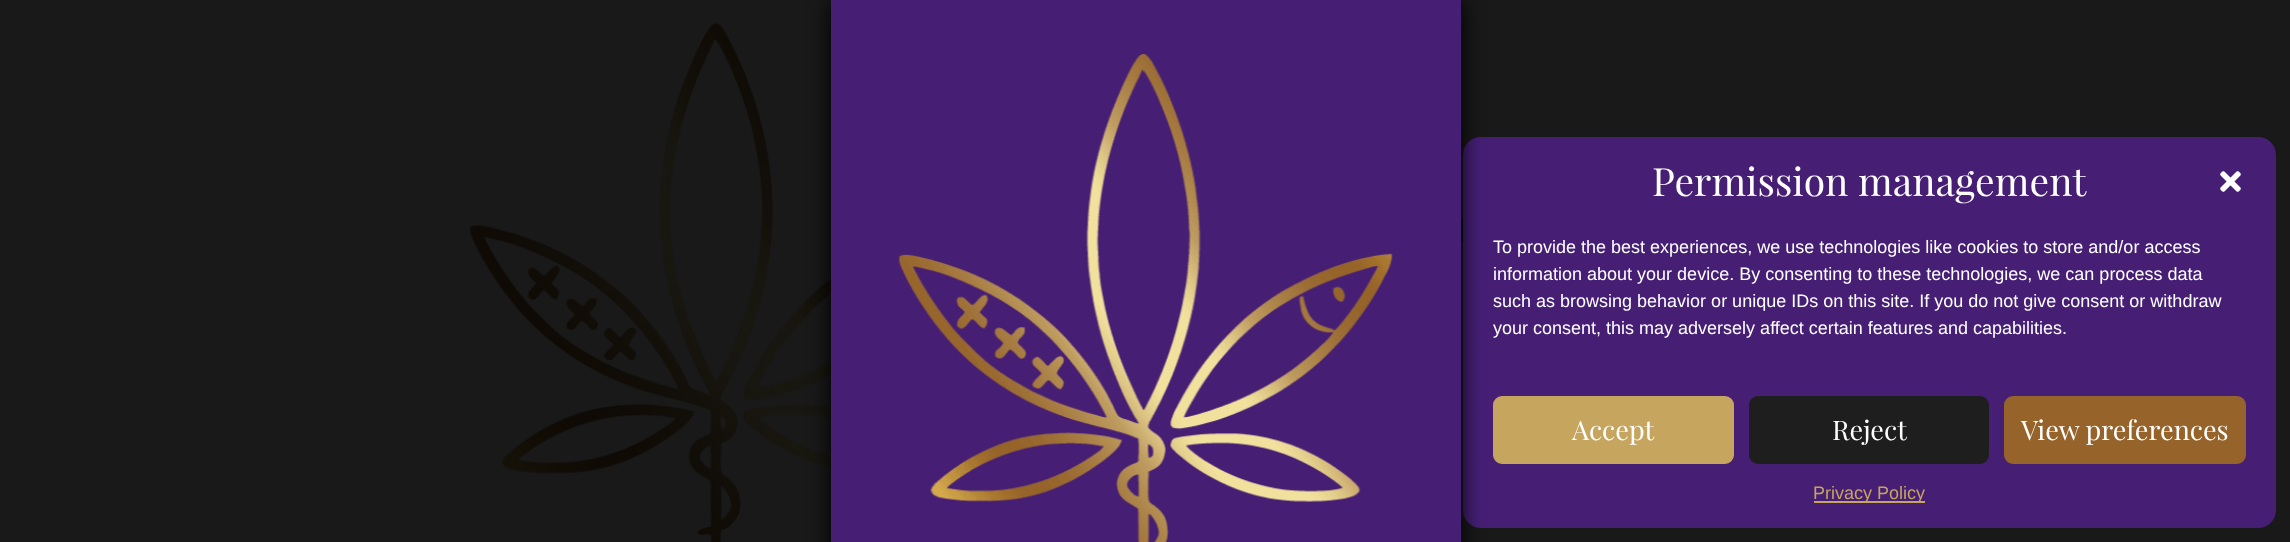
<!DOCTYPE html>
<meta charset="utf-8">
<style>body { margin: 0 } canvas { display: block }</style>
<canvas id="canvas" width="2290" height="542"></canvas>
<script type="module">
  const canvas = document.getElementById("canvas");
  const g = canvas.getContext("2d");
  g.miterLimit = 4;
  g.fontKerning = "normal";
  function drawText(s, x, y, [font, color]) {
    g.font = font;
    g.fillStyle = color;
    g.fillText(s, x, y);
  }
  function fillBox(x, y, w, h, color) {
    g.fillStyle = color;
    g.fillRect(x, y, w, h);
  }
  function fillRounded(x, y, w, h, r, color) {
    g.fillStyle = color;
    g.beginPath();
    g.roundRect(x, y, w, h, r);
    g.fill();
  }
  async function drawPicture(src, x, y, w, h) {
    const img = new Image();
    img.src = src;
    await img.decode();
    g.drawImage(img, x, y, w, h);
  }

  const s1 = ["39px Playfair Display", "#FFFFFF"];
  const s2 = ["18px Liberation Sans", "#FFFFFF"];
  const s3 = ["27px Playfair Display", "#FFFFFF"];
  const s4 = ["18px Liberation Sans", "#C6A55F"];

  fillBox(0, 0, 2290, 542, "#191919");
  await drawPicture("pic2.png", 470, 23, 361, 519);
  fillBox(1461, 219, 2, 23, "#020202");
  fillRounded(1463, 137, 813, 391, 18, "#461F75");
  g.fillStyle = "#C6A55F";
  g.beginPath();
  g.roundRect(1494, 397, 239, 66, 8);
  g.fill();
  g.strokeStyle = "#C6A55F";
  g.lineWidth = 2;
  g.stroke();
  g.fillStyle = "#000000";
  g.filter = "blur(11px)";
  g.beginPath();
  g.rect(831, 0, 630, 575);
  g.fill();
  g.filter = "none";
  fillBox(831, 0, 630, 542, "#461F75");
  await drawPicture("pic1.png", 898, 54, 495, 488);
  drawText("Permission management", 1652, 196, s1);
  await drawPicture("pic3.png", 2220, 171, 21, 21);
  drawText("To provide the best experiences, we use technologies like cookies to store and/or access", 1493, 253, s2);
  drawText("information about your device. By consenting to these technologies, we can process data", 1493, 280, s2);
  drawText("such as browsing behavior or unique IDs on this site. If you do not give consent or withdraw", 1493, 307, s2);
  drawText("your consent, this may adversely affect certain features and capabilities.", 1493, 334, s2);
  drawText("Accept", 1572, 440, s3);
  g.fillStyle = "#1E1E1E";
  g.beginPath();
  g.roundRect(1750, 397, 238, 66, 8);
  g.fill();
  g.strokeStyle = "#1E1E1E";
  g.stroke();
  drawText("Reject", 1832, 440, s3);
  g.fillStyle = "#96642B";
  g.beginPath();
  g.roundRect(2005, 397, 240, 66, 8);
  g.fill();
  g.strokeStyle = "#96642B";
  g.stroke();
  drawText("View preferences", 2021, 440, s3);
  fillBox(1814, 501, 111, 2, "#C6A55F");
  drawText("Privacy Policy", 1813, 499, s4);
</script>
